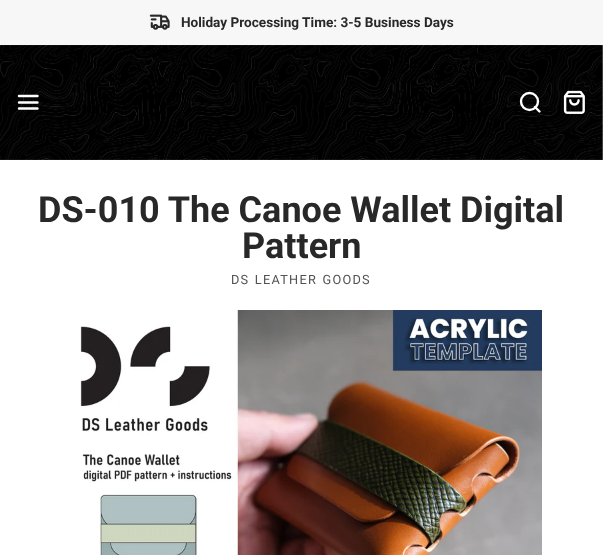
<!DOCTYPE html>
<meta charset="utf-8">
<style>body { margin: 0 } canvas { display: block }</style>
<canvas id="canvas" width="603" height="555"></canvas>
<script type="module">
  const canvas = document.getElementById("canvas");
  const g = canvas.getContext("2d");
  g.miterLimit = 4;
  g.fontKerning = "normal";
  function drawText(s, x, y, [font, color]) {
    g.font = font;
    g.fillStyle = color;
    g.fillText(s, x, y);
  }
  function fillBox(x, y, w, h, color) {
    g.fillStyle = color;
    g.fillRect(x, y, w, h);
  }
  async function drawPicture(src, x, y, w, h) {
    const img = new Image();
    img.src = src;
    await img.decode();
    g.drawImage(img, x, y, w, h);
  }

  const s1 = ["bold 13.6px Roboto", "#282828"];
  const s2 = ["bold 36px Roboto", "#282828"];
  const s3 = ["12.75px Roboto", "#535353"];

  fillBox(0, 0, 603, 555, "#FFFFFF");
  fillBox(0, 0, 603, 45, "#F7F7F7");
  await drawPicture("pic1.png", 149, 14, 21, 16);
  drawText("Holiday Processing Time: 3-5 Business Days", 181, 27, s1);
  await drawPicture("pic2.png", 0, 45, 603, 115);
  g.beginPath();
  g.moveTo(19, 102.5);
  g.lineTo(37.5, 102.5);
  g.moveTo(19, 96);
  g.lineTo(37.5, 96);
  g.moveTo(19, 108.5);
  g.lineTo(37.5, 108.5);
  g.strokeStyle = "#FFFFFF";
  g.lineWidth = 2.4;
  g.lineCap = "round";
  g.lineJoin = "round";
  g.stroke();
  g.beginPath();
  g.arc(529.5, 101.5, 8.5, 0, Math.PI * 2);
  g.stroke();
  g.beginPath();
  g.moveTo(539.5, 111.5);
  g.lineTo(535, 107);
  g.stroke();
  await drawPicture("pic3.png", 563, 90, 22, 24);
  drawText("DS-010 The Canoe Wallet Digital", 38, 222, s2);
  drawText("Pattern", 242, 258, s2);
  g.letterSpacing = "1.25px";
  g.wordSpacing = "1px";
  drawText("DS LEATHER GOODS", 231, 284, s3);
  await drawPicture("pic4.png", 80, 310, 462, 245);
</script>
